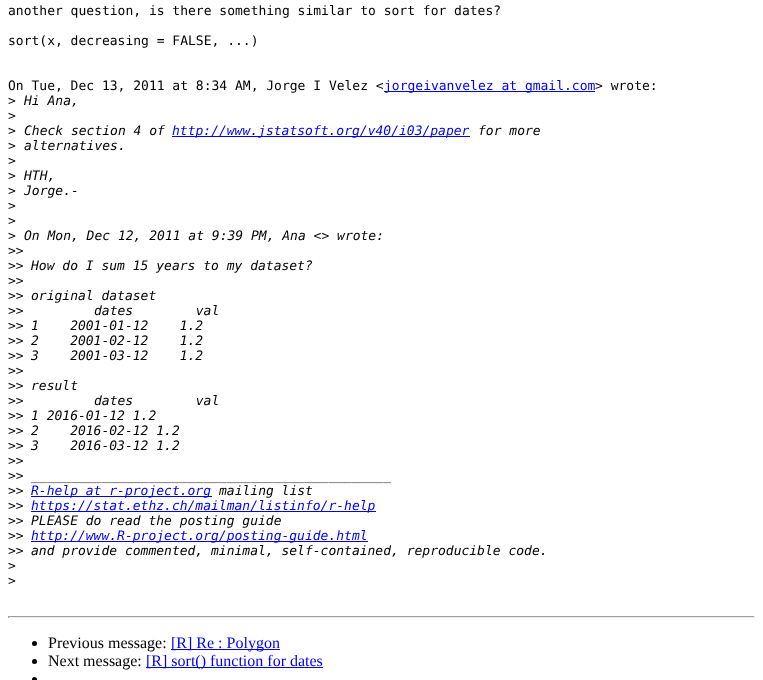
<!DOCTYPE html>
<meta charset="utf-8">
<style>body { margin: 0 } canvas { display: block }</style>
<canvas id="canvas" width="763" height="680"></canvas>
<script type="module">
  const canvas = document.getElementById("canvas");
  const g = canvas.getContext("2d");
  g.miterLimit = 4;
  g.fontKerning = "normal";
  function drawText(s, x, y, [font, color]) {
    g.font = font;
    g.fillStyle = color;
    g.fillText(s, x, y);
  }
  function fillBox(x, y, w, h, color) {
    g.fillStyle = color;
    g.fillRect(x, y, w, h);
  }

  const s1 = ["13px DejaVu Sans Mono", "#000000"];
  const s2 = ["13px DejaVu Sans Mono", "#0000EE"];
  const s3 = ["italic 13px DejaVu Sans Mono", "#000000"];
  const s4 = ["italic 13px DejaVu Sans Mono", "#0000EE"];
  const s5 = ["16px Liberation Serif", "#000000"];
  const s6 = ["16px Liberation Serif", "#0000EE"];

  fillBox(0, 0, 763, 680, "#FFFFFF");
  drawText("another question, is there something similar to sort for dates?", 8, 15, s1);
  drawText("sort(x, decreasing = FALSE, ...)", 8, 45, s1);
  drawText("On Tue, Dec 13, 2011 at 8:34 AM, Jorge I Velez <", 8, 90, s1);
  fillBox(384, 91, 211, 1, "#0000EE");
  drawText("jorgeivanvelez at gmail.com", 384, 90, s2);
  drawText("> wrote:", 595, 90, s1);
  drawText(">", 8, 105, s1);
  drawText("Hi Ana,", 24, 105, s3);
  drawText(">", 8, 120, s1);
  drawText(">", 8, 135, s1);
  drawText("Check section 4 of", 24, 135, s3);
  fillBox(172, 136, 298, 1, "#0000EE");
  drawText("http://www.jstatsoft.org/v40/i03/paper", 172, 135, s4);
  drawText("for more", 478, 135, s3);
  drawText(">", 8, 150, s1);
  drawText("alternatives.", 24, 150, s3);
  drawText(">", 8, 165, s1);
  drawText(">", 8, 180, s1);
  drawText("HTH,", 24, 180, s3);
  drawText(">", 8, 195, s1);
  drawText("Jorge.-", 24, 195, s3);
  drawText(">", 8, 210, s1);
  drawText(">", 8, 225, s1);
  drawText(">", 8, 240, s1);
  drawText("On Mon, Dec 12, 2011 at 9:39 PM, Ana <> wrote:", 24, 240, s3);
  drawText(">>", 8, 255, s1);
  drawText(">>", 8, 270, s1);
  drawText("How do I sum 15 years to my dataset?", 31, 270, s3);
  drawText(">>", 8, 285, s1);
  drawText(">>", 8, 300, s1);
  drawText("original dataset", 31, 300, s3);
  drawText(">>", 8, 315, s1);
  drawText("dates        val", 94, 315, s3);
  drawText(">>", 8, 330, s1);
  drawText("1    2001-01-12    1.2", 31, 330, s3);
  drawText(">>", 8, 345, s1);
  drawText("2    2001-02-12    1.2", 31, 345, s3);
  drawText(">>", 8, 360, s1);
  drawText("3    2001-03-12    1.2", 31, 360, s3);
  drawText(">>", 8, 375, s1);
  drawText(">>", 8, 390, s1);
  drawText("result", 31, 390, s3);
  drawText(">>", 8, 405, s1);
  drawText("dates        val", 94, 405, s3);
  drawText(">>", 8, 420, s1);
  drawText("1 2016-01-12 1.2", 31, 420, s3);
  drawText(">>", 8, 435, s1);
  drawText("2    2016-02-12 1.2", 31, 435, s3);
  drawText(">>", 8, 450, s1);
  drawText("3    2016-03-12 1.2", 31, 450, s3);
  drawText(">>", 8, 465, s1);
  drawText(">>", 8, 480, s1);
  drawText("______________________________________________", 31, 480, s3);
  drawText(">>", 8, 495, s1);
  fillBox(31, 496, 181, 1, "#0000EE");
  drawText("R-help at r-project.org", 31, 495, s4);
  drawText("mailing list", 219, 495, s3);
  drawText(">>", 8, 510, s1);
  fillBox(31, 511, 345, 1, "#0000EE");
  drawText("https://stat.ethz.ch/mailman/listinfo/r-help", 31, 510, s4);
  drawText(">>", 8, 525, s1);
  drawText("PLEASE do read the posting guide", 31, 525, s3);
  drawText(">>", 8, 540, s1);
  fillBox(31, 541, 337, 1, "#0000EE");
  drawText("http://www.R-project.org/posting-guide.html", 31, 540, s4);
  drawText(">>", 8, 555, s1);
  drawText("and provide commented, minimal, self-contained, reproducible code.", 31, 555, s3);
  drawText(">", 8, 570, s1);
  drawText(">", 8, 585, s1);
  fillBox(8, 616, 747, 1, "#9F9F9F");
  fillBox(754, 616, 1, 2, "#EEEEEE");
  fillBox(8, 617, 747, 1, "#EEEEEE");
  fillBox(8, 616, 1, 2, "#9F9F9F");
  g.fillStyle = "#000000";
  g.beginPath();
  g.arc(34.5, 643.5, 2.5, 0, Math.PI * 2);
  g.fill();
  drawText("Previous message:", 48, 648, s5);
  fillBox(171, 649, 109, 1, "#0000EE");
  drawText("[R] Re : Polygon", 171, 648, s6);
  g.fillStyle = "#000000";
  g.beginPath();
  g.arc(34.5, 661.5, 2.5, 0, Math.PI * 2);
  g.fill();
  drawText("Next message:", 48, 666, s5);
  fillBox(146, 667, 177, 1, "#0000EE");
  drawText("[R] sort() function for dates", 146, 666, s6);
  g.fillStyle = "#000000";
  g.beginPath();
  g.arc(34.5, 679.5, 2.5, 0, Math.PI * 2);
  g.fill();
</script>
